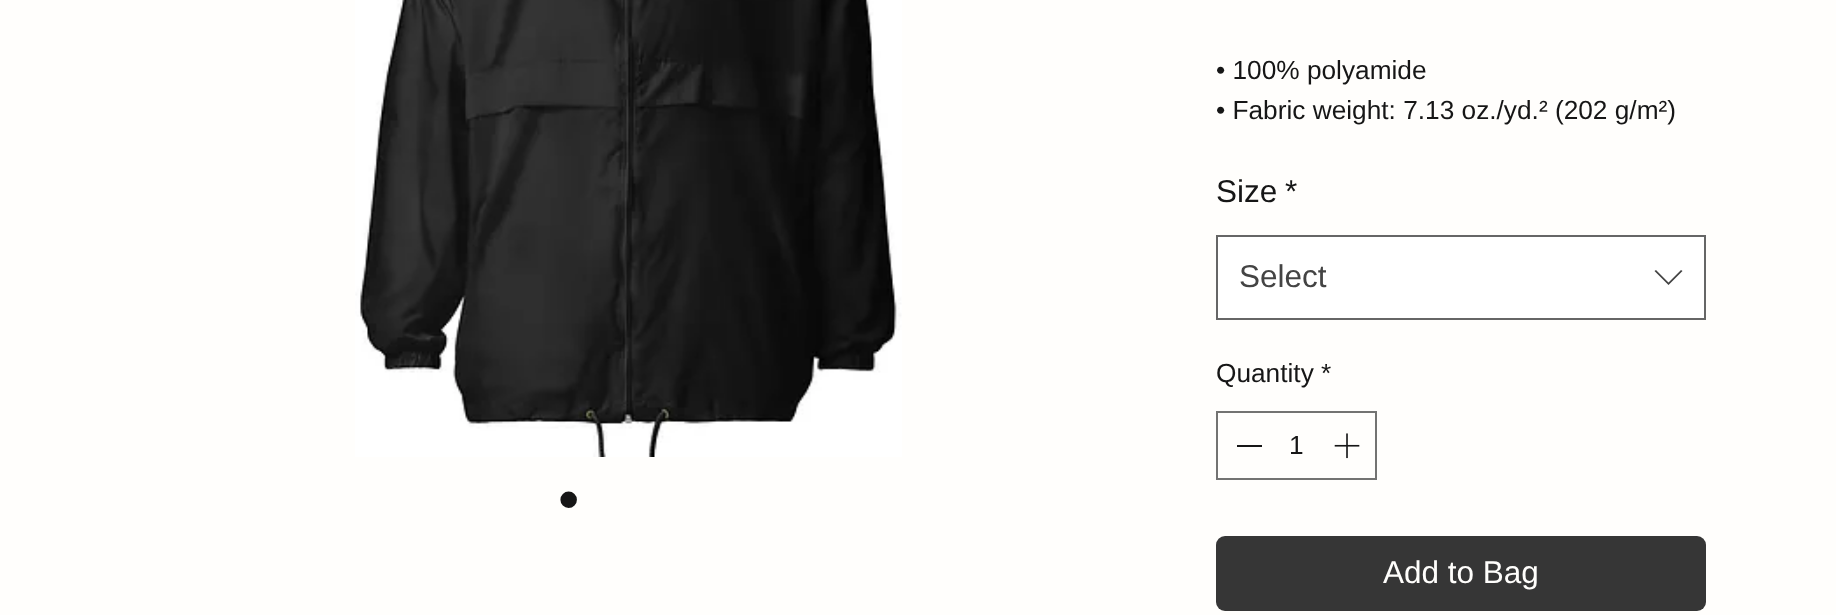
<!DOCTYPE html>
<meta charset="utf-8">
<style>body { margin: 0 } canvas { display: block }</style>
<canvas id="canvas" width="1836" height="615"></canvas>
<script type="module">
  const canvas = document.getElementById("canvas");
  const g = canvas.getContext("2d");
  g.miterLimit = 4;
  g.fontKerning = "normal";
  function drawText(s, x, y, [font, color]) {
    g.font = font;
    g.fillStyle = color;
    g.fillText(s, x, y);
  }
  function fillBox(x, y, w, h, color) {
    g.fillStyle = color;
    g.fillRect(x, y, w, h);
  }
  function fillRounded(x, y, w, h, r, color) {
    g.fillStyle = color;
    g.beginPath();
    g.roundRect(x, y, w, h, r);
    g.fill();
  }
  async function drawPicture(src, x, y, w, h) {
    const img = new Image();
    img.src = src;
    await img.decode();
    g.drawImage(img, x, y, w, h);
  }

  const s1 = ["61px Liberation Sans", "#161616"];
  const s2 = ["26.25px Liberation Sans", "#161616"];
  const s3 = ["31.5px Liberation Sans", "#161616"];
  const s4 = ["31.5px Liberation Sans", "#444444"];
  const s5 = ["31.5px Liberation Sans", "#FFFEFC"];

  fillBox(0, 0, 1836, 615, "#FFFEFC");
  await drawPicture("pic1.png", 355, 0, 547, 457);
  drawText("•", 558, 520, s1);
  drawText("• 100% polyamide", 1216, 79, s2);
  drawText("• Fabric weight: 7.13 oz./yd.² (202 g/m²)", 1216, 119, s2);
  drawText("Size", 1216, 202, s3);
  drawText("*", 1285, 202, s3);
  g.fillStyle = "#FFFFFF";
  g.beginPath();
  g.rect(1217, 236, 488, 83);
  g.fill();
  g.strokeStyle = "#666666";
  g.lineWidth = 2;
  g.stroke();
  drawText("Select", 1239, 287, s4);
  g.beginPath();
  g.moveTo(1681, 270);
  g.lineTo(1682.5, 271);
  g.lineTo(1668.5, 285);
  g.lineTo(1654.5, 271);
  g.lineTo(1656, 270);
  g.lineTo(1668.5, 282.5);
  g.closePath();
  g.fill("evenodd");
  drawText("Quantity *", 1216, 382, s2);
  g.strokeStyle = "#737372";
  g.strokeRect(1217, 412, 159, 67);
  fillBox(1237, 445, 25, 2, "#161616");
  drawText("1", 1289, 454, s2);
  await drawPicture("pic2.png", 1334, 433, 26, 26);
  fillRounded(1216, 536, 490, 75, 9, "#363636");
  drawText("Add to Bag", 1383, 583, s5);
</script>
